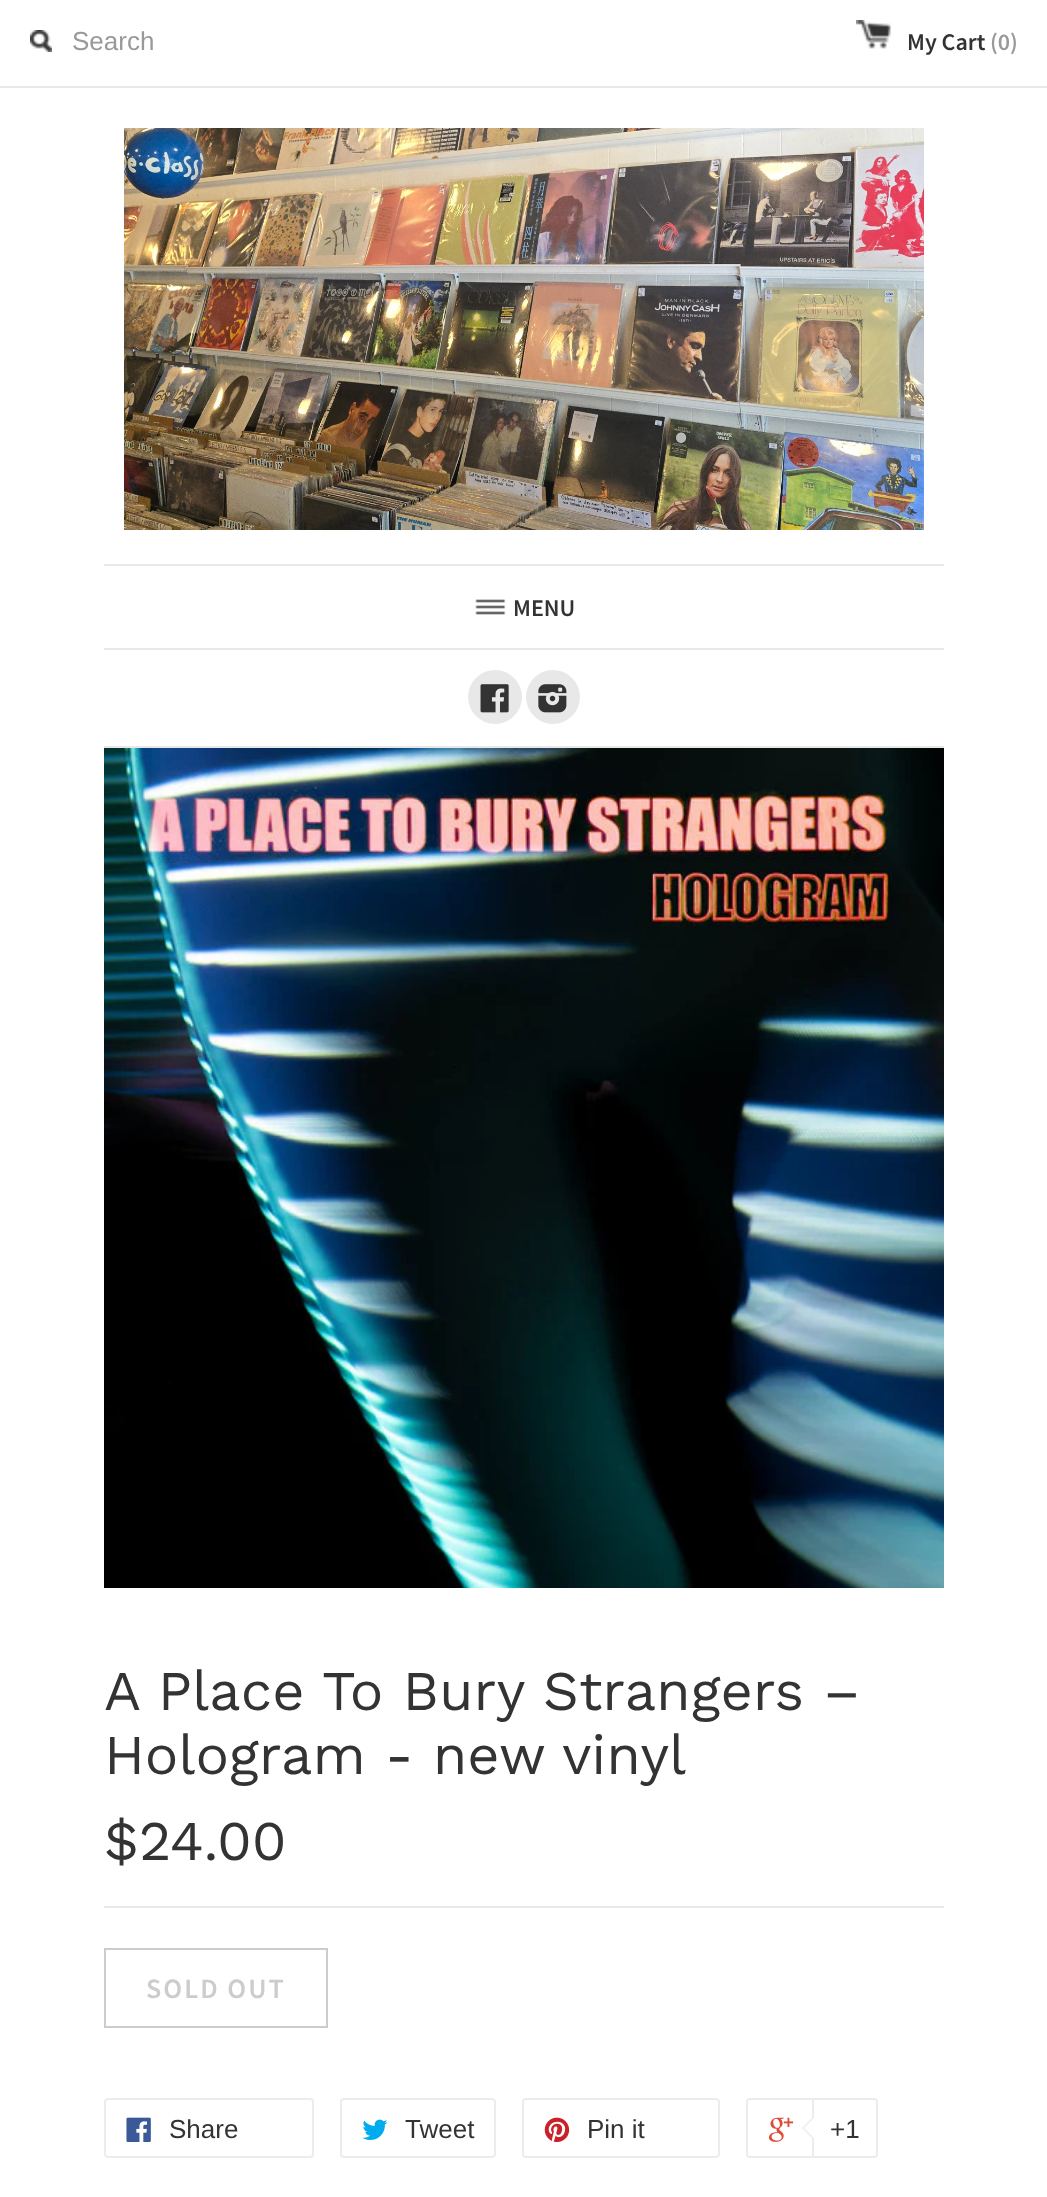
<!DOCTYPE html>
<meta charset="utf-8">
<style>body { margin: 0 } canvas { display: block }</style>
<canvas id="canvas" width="1047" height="2197"></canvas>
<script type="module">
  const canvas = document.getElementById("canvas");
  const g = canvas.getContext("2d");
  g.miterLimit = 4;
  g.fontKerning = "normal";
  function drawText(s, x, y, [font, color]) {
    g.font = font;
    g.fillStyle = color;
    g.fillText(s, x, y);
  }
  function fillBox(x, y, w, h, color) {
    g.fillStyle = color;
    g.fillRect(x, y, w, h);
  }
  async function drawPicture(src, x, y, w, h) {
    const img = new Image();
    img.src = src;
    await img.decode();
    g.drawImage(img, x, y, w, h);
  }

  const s1 = ["26px Liberation Sans", "#999999"];
  const s2 = ["600 24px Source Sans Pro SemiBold", "#333333"];
  const s3 = ["600 24px Source Sans Pro SemiBold", "#999999"];
  const s4 = ["56px Work Sans", "#333333"];
  const s5 = ["600 28px Source Sans Pro SemiBold", "#CCCCCC"];
  const s6 = ["26px Liberation Sans", "#333333"];

  fillBox(0, 0, 1047, 2197, "#FFFFFF");
  fillBox(0, 86, 1047, 2, "#E8E8E8");
  await drawPicture("pic1.png", 30, 30, 22, 22);
  drawText("Search", 72, 50, s1);
  await drawPicture("pic2.png", 856, 20, 35, 29);
  drawText("My Cart", 907, 50, s2);
  drawText("(0)", 990, 50, s3);
  await drawPicture("pic3.png", 124, 128, 800, 402);
  fillBox(104, 564, 840, 2, "#E8E8E8");
  fillBox(104, 648, 840, 2, "#E8E8E8");
  await drawPicture("pic4.png", 475, 599, 31, 16);
  drawText("MENU", 513, 616, s2);
  g.fillStyle = "#E8E8E8";
  g.beginPath();
  g.arc(495, 697, 27, 0, Math.PI * 2);
  g.fill();
  await drawPicture("pic5.png", 480, 684, 29, 29);
  g.beginPath();
  g.arc(553, 697, 27, 0, Math.PI * 2);
  g.fill();
  await drawPicture("pic6.png", 538, 684, 29, 29);
  fillBox(104, 746, 840, 2, "#E8E8E8");
  await drawPicture("pic7.png", 104, 748, 840, 840);
  drawText("A Place To Bury Strangers –", 104, 1710, s4);
  drawText("Hologram - new vinyl", 104, 1774, s4);
  drawText("$24.00", 104, 1860, s4);
  fillBox(104, 1906, 840, 2, "#E8E8E8");
  g.strokeStyle = "#CCCCCC";
  g.lineWidth = 2;
  g.strokeRect(105, 1949, 222, 78);
  g.letterSpacing = "2px";
  drawText("SOLD OUT", 146, 1998, s5);
  g.beginPath();
  g.roundRect(105, 2099, 208, 58, 3);
  g.strokeStyle = "#ECECEC";
  g.stroke();
  await drawPicture("pic8.png", 126, 2117, 25, 25);
  g.letterSpacing = "0px";
  drawText("Share", 169, 2138, s6);
  g.beginPath();
  g.roundRect(341, 2099, 154, 58, 3);
  g.stroke();
  await drawPicture("pic9.png", 362, 2119, 26, 21);
  drawText("Tweet", 405, 2138, s6);
  g.beginPath();
  g.roundRect(523, 2099, 196, 58, 3);
  g.stroke();
  await drawPicture("pic10.png", 544, 2117, 26, 25);
  drawText("Pin it", 587, 2138, s6);
  g.beginPath();
  g.roundRect(747, 2099, 128, 58, 3);
  g.stroke();
  await drawPicture("pic11.png", 768, 2117, 26, 25);
  g.fillStyle = "#FFFFFF";
  g.beginPath();
  g.roundRect(813, 2099, 64, 58, [0, 3, 3, 0]);
  g.fill();
  g.stroke();
  g.fillStyle = "#ECECEC";
  g.beginPath();
  g.moveTo(814, 2116);
  g.lineTo(814, 2140);
  g.lineTo(802, 2128);
  g.closePath();
  g.fill();
  g.fillStyle = "#FFFFFF";
  g.beginPath();
  g.moveTo(816, 2116);
  g.lineTo(816, 2140);
  g.lineTo(804, 2128);
  g.closePath();
  g.fill();
  drawText("+1", 830, 2138, s6);
</script>
